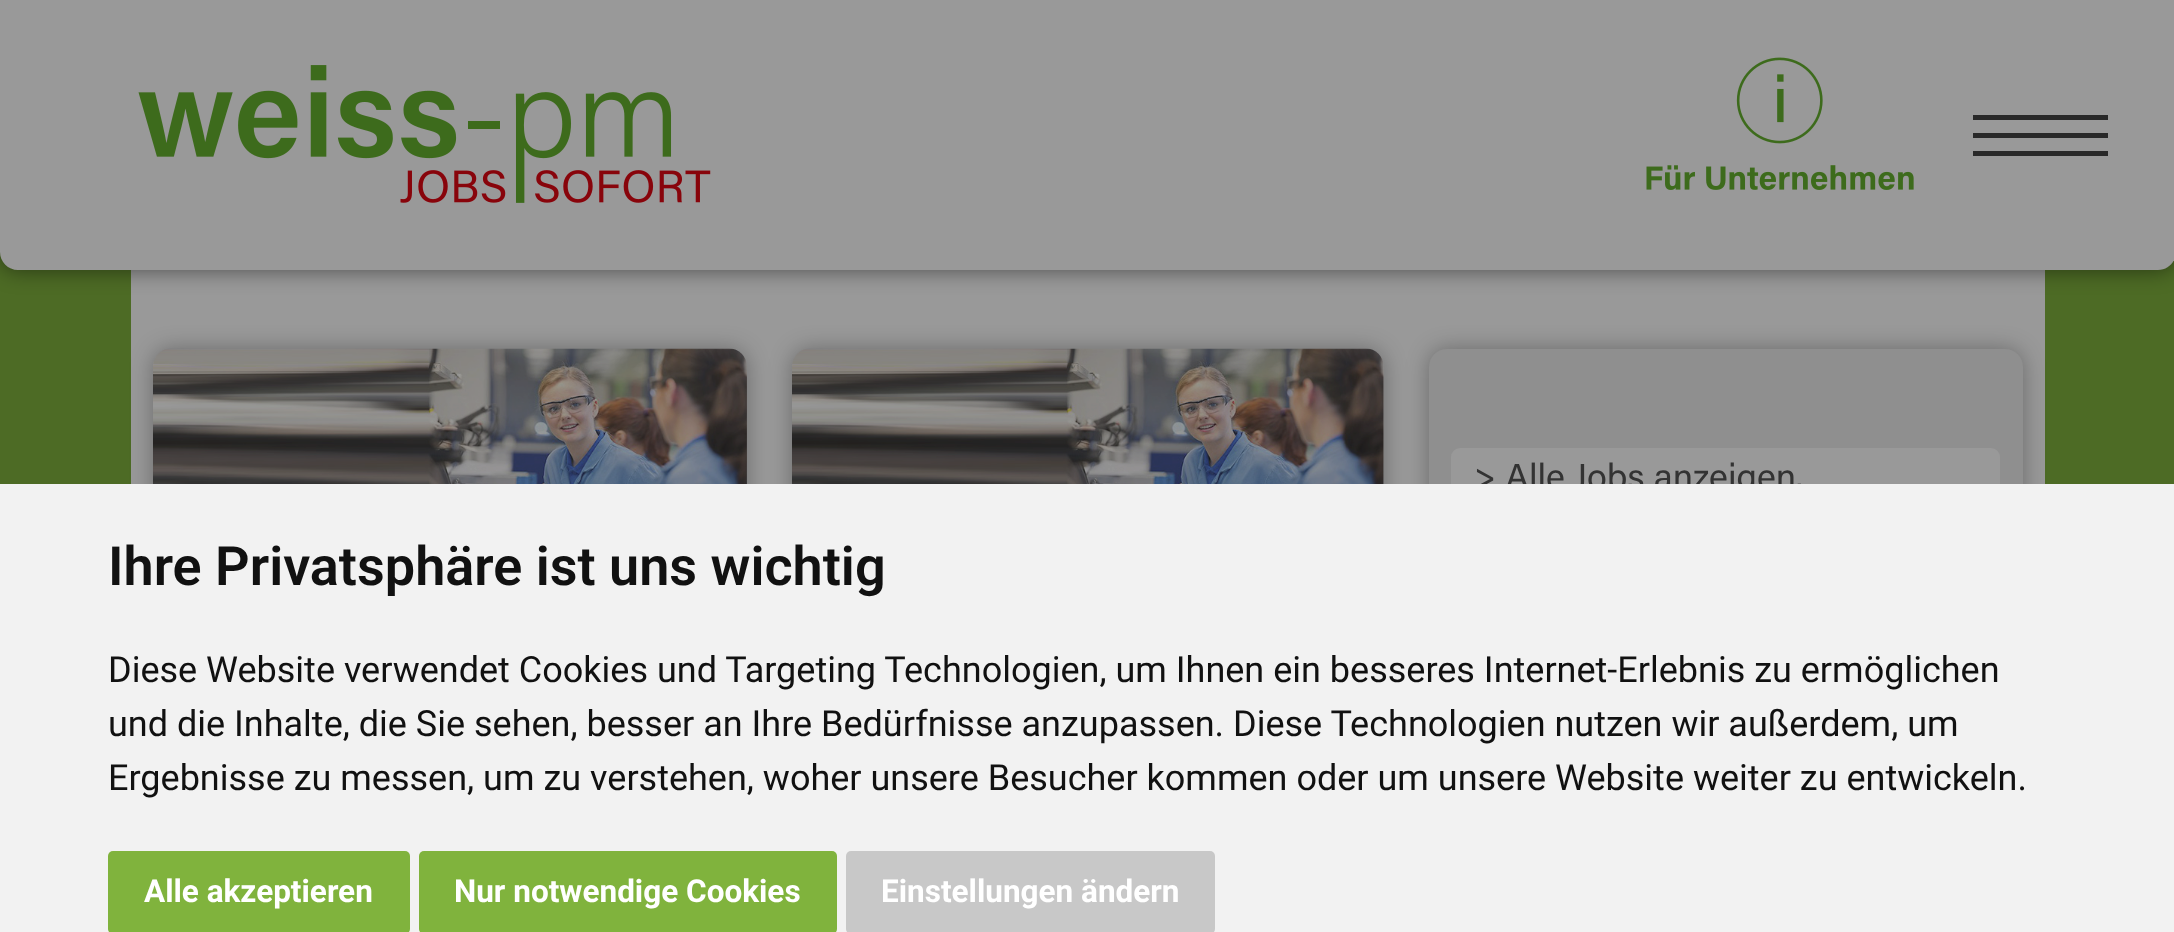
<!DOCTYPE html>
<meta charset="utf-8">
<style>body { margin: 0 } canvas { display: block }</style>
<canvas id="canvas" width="2174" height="932"></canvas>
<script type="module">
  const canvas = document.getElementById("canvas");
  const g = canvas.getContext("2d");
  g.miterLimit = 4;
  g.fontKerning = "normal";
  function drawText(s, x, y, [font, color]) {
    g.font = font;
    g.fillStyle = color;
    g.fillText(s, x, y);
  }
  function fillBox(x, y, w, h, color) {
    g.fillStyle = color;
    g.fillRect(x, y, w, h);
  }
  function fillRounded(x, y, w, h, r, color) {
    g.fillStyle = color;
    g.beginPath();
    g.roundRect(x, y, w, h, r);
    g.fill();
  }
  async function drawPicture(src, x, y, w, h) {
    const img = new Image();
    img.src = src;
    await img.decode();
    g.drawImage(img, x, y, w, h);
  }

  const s1 = ["36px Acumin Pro", "#333333"];
  const s2 = ["600 54px Roboto", "#111111"];
  const s3 = ["36px Roboto", "#111111"];
  const s4 = ["bold 31.5px Roboto", "#FFFFFF"];

  fillBox(0, 0, 2174, 932, "#4D6B25");
  fillBox(131, 270, 1914, 214, "#999999");
  g.fillStyle = "rgba(0, 0, 0, 0.5)";
  g.filter = "blur(11px)";
  g.beginPath();
  g.roundRect(0, 0, 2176, 270, 18);
  g.fill();
  g.filter = "none";
  g.fillStyle = "#999999";
  g.beginPath();
  g.moveTo(0, 0);
  g.lineTo(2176, 0);
  g.lineTo(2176, 252);
  g.bezierCurveTo(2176, 262, 2168, 270, 2158, 270);
  g.lineTo(18, 270);
  g.bezierCurveTo(8, 270, 0, 262, 0, 252);
  g.closePath();
  g.fill();
  await drawPicture("pic1.png", 138, 65, 573, 138);
  await drawPicture("pic2.png", 1646, 57, 268, 133);
  fillBox(1973, 115, 135, 5, "#292929");
  fillBox(1973, 133, 135, 5, "#292929");
  fillBox(1973, 151, 135, 5, "#292929");
  g.save();
  g.beginPath();
  g.moveTo(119, 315);
  g.lineTo(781, 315);
  g.lineTo(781, 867);
  g.lineTo(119, 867);
  g.closePath();
  g.moveTo(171, 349);
  g.lineTo(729, 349);
  g.bezierCurveTo(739, 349, 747, 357, 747, 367);
  g.lineTo(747, 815);
  g.bezierCurveTo(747, 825, 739, 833, 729, 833);
  g.lineTo(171, 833);
  g.bezierCurveTo(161, 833, 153, 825, 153, 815);
  g.lineTo(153, 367);
  g.bezierCurveTo(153, 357, 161, 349, 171, 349);
  g.closePath();
  g.clip("evenodd");
  g.fillStyle = "rgba(0, 0, 0, 0.3)";
  g.filter = "blur(11px)";
  g.beginPath();
  g.roundRect(153, 349, 594, 484, 18);
  g.fill();
  g.filter = "none";
  g.restore();
  await drawPicture("pic3.png", 153, 348, 594, 136);
  g.fillStyle = "rgba(0, 0, 0, 0.3)";
  g.filter = "blur(11px)";
  g.beginPath();
  g.roundRect(792, 349, 592, 484, 18);
  g.fill();
  g.filter = "none";
  fillRounded(792, 349, 592, 484, 18, "#8F8F8F");
  await drawPicture("pic4.png", 792, 348, 592, 136);
  g.fillStyle = "rgba(0, 0, 0, 0.3)";
  g.filter = "blur(11px)";
  g.beginPath();
  g.roundRect(1429, 349, 594, 484, 18);
  g.fill();
  g.filter = "none";
  fillRounded(1429, 349, 594, 484, 18, "#8F8F8F");
  fillRounded(1451, 448, 549, 67, 9, "#999999");
  drawText("> Alle Jobs anzeigen.", 1474, 489, s1);
  fillBox(0, 484, 2174, 448, "#F2F2F2");
  drawText("Ihre Privatsphäre ist uns wichtig", 108, 585, s2);
  drawText("Diese Website verwendet Cookies und Targeting Technologien, um Ihnen ein besseres Internet-Erlebnis zu ermöglichen", 108, 682, s3);
  drawText("und die Inhalte, die Sie sehen, besser an Ihre Bedürfnisse anzupassen. Diese Technologien nutzen wir außerdem, um", 108, 736, s3);
  drawText("Ergebnisse zu messen, um zu verstehen, woher unsere Besucher kommen oder um unsere Website weiter zu entwickeln.", 108, 790, s3);
  fillRounded(108, 851, 302, 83, 5, "#80B33D");
  drawText("Alle akzeptieren", 144, 902, s4);
  fillRounded(419, 851, 418, 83, 5, "#80B33D");
  drawText("Nur notwendige Cookies", 454, 902, s4);
  fillRounded(846, 851, 369, 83, 5, "#C8C8C8");
  drawText("Einstellungen ändern", 881, 902, s4);
</script>
